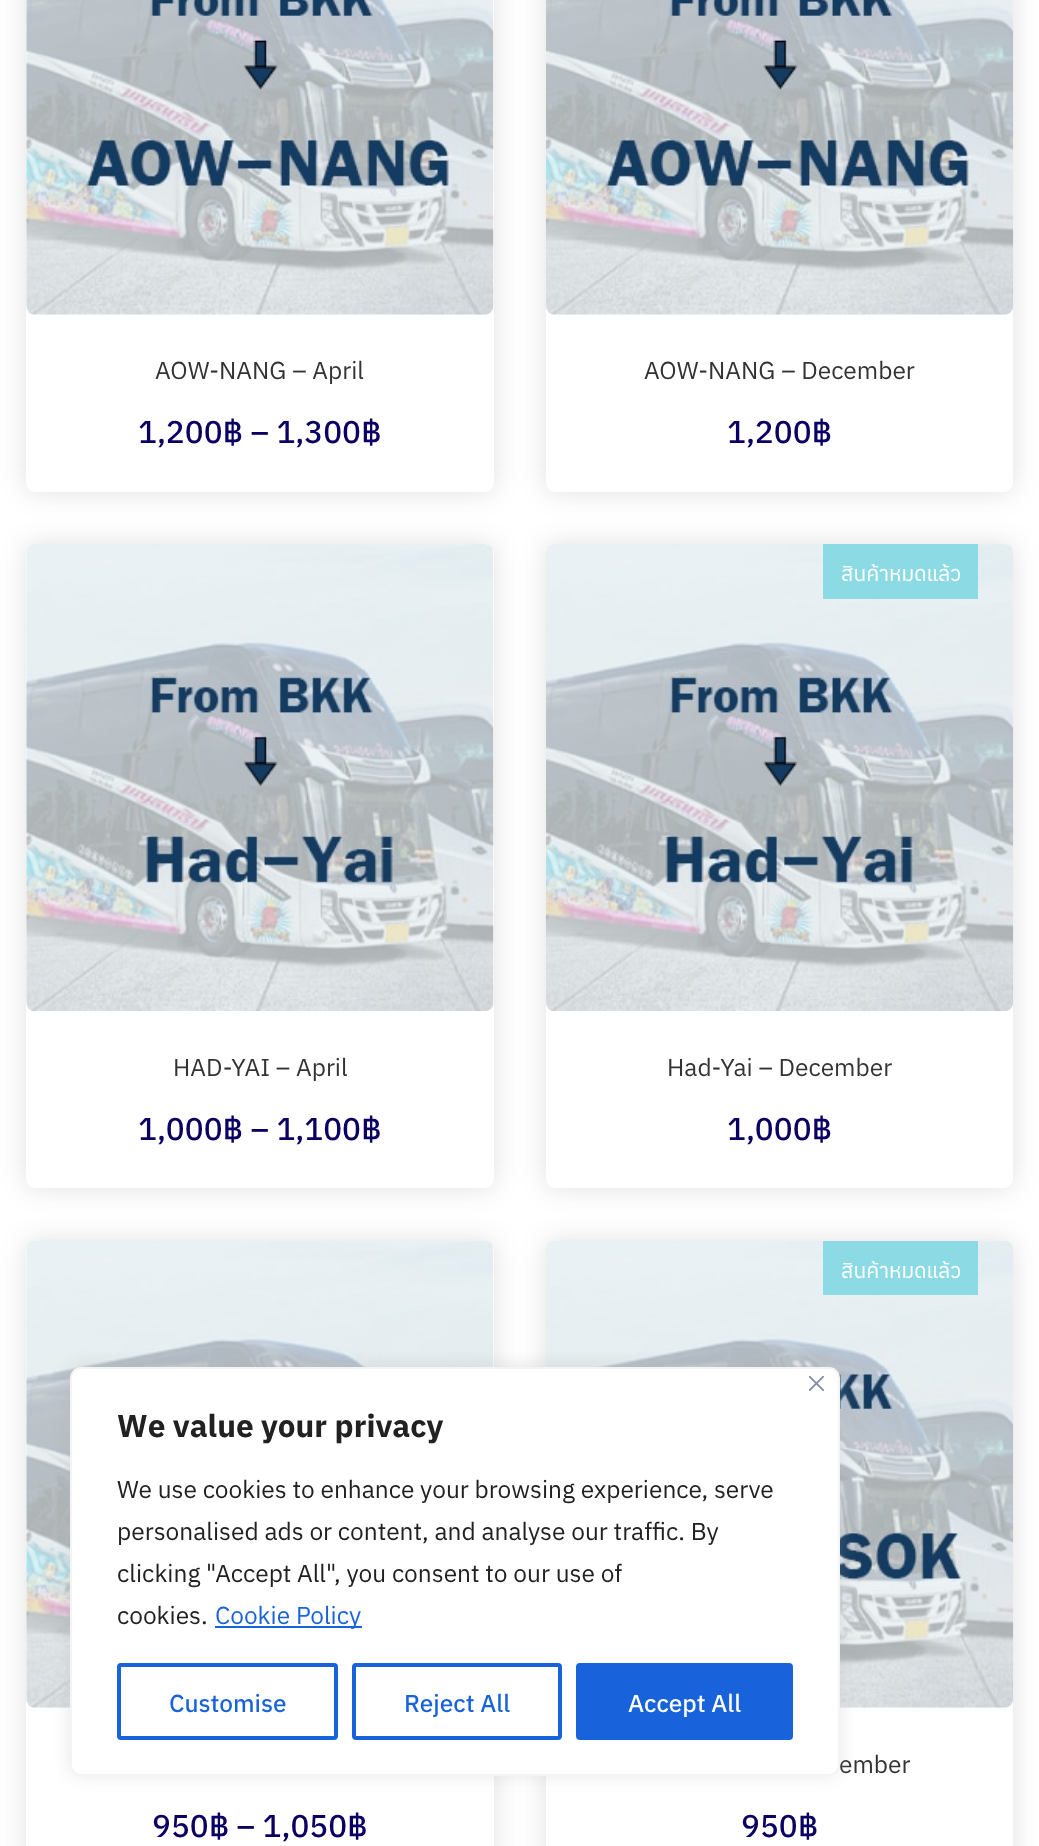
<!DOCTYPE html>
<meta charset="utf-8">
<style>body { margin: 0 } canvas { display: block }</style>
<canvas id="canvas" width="1039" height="1846"></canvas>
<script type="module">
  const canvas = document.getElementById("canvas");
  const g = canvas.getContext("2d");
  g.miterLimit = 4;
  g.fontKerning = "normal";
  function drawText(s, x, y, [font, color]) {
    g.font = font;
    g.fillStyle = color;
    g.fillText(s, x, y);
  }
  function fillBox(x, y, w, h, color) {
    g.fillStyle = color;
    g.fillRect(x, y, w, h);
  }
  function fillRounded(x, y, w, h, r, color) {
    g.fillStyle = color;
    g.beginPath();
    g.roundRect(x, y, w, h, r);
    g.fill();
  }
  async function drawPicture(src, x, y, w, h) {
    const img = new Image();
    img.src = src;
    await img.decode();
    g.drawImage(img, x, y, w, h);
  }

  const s1 = ["24.5px anuphan", "#333333"];
  const s2 = ["500 31.5px Anuphan", "#0A0064"];
  const s3 = ["21px anuphan", "#FFFFFF"];
  const s4 = ["bold 31.5px anuphan", "#212121"];
  const s5 = ["24.5px anuphan", "#212121"];
  const s6 = ["24.5px anuphan", "#1863DC"];
  const s7 = ["500 24.5px Anuphan", "#1863DC"];
  const s8 = ["500 24.5px Anuphan", "#FFFFFF"];

  fillBox(0, 0, 1039, 1846, "#FFFFFF");
  g.fillStyle = "rgba(41, 44, 58, 0.15)";
  g.filter = "blur(13px)";
  g.beginPath();
  g.roundRect(26, -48, 468, 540, 9);
  g.fill();
  g.filter = "none";
  fillRounded(26, -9, 468, 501, 9, "#FFFFFF");
  await drawPicture("pic1.png", 26, 0, 468, 315);
  drawText("AOW-NANG – April", 155, 379, s1);
  drawText("1,200฿ – 1,300฿", 138, 443, s2);
  g.fillStyle = "rgba(41, 44, 58, 0.15)";
  g.filter = "blur(13px)";
  g.beginPath();
  g.roundRect(546, -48, 467, 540, 9);
  g.fill();
  g.filter = "none";
  fillRounded(546, -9, 467, 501, 9, "#FFFFFF");
  await drawPicture("pic2.png", 546, 0, 468, 315);
  drawText("AOW-NANG – December", 644, 379, s1);
  drawText("1,200฿", 727, 443, s2);
  g.fillStyle = "rgba(41, 44, 58, 0.15)";
  g.filter = "blur(13px)";
  g.beginPath();
  g.roundRect(26, 544, 468, 644, 9);
  g.fill();
  g.filter = "none";
  fillRounded(26, 544, 468, 644, 9, "#FFFFFF");
  await drawPicture("pic3.png", 26, 544, 468, 468);
  drawText("HAD-YAI – April", 173, 1076, s1);
  drawText("1,000฿ – 1,100฿", 138, 1140, s2);
  g.fillStyle = "rgba(41, 44, 58, 0.15)";
  g.filter = "blur(13px)";
  g.beginPath();
  g.roundRect(546, 544, 467, 644, 9);
  g.fill();
  g.filter = "none";
  fillRounded(546, 544, 467, 644, 9, "#FFFFFF");
  await drawPicture("pic4.png", 546, 544, 468, 468);
  fillBox(823, 544, 155, 55, "#8CDBE4");
  drawText("สินค้าหมดแล้ว", 841, 581, s3);
  drawText("Had-Yai – December", 667, 1076, s1);
  drawText("1,000฿", 727, 1140, s2);
  g.fillStyle = "rgba(41, 44, 58, 0.15)";
  g.filter = "blur(13px)";
  g.beginPath();
  g.roundRect(26, 1241, 468, 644, 9);
  g.fill();
  g.filter = "none";
  fillRounded(26, 1241, 468, 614, 9, "#FFFFFF");
  await drawPicture("pic5.png", 26, 1240, 468, 468);
  drawText("950฿ – 1,050฿", 152, 1837, s2);
  g.fillStyle = "rgba(41, 44, 58, 0.15)";
  g.filter = "blur(13px)";
  g.beginPath();
  g.roundRect(546, 1241, 467, 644, 9);
  g.fill();
  g.filter = "none";
  fillRounded(546, 1241, 467, 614, 9, "#FFFFFF");
  await drawPicture("pic6.png", 546, 1240, 468, 468);
  fillBox(823, 1241, 155, 54, "#8CDBE4");
  drawText("สินค้าหมดแล้ว", 841, 1278, s3);
  drawText("ember", 839, 1773, s1);
  drawText("950฿", 741, 1837, s2);
  g.fillStyle = "rgba(172, 171, 171, 0.3)";
  g.filter = "blur(9px)";
  g.beginPath();
  g.roundRect(70, 1365, 770, 410, 11);
  g.fill();
  g.filter = "none";
  g.fillStyle = "#FFFFFF";
  g.beginPath();
  g.roundRect(71, 1368, 768, 407, 10);
  g.fill();
  g.strokeStyle = "#F4F4F4";
  g.lineWidth = 2;
  g.stroke();
  await drawPicture("pic7.png", 809, 1376, 15, 15);
  drawText("We value your privacy", 117, 1437, s4);
  drawText("We use cookies to enhance your browsing experience, serve", 117, 1498, s5);
  drawText("personalised ads or content, and analyse our traffic. By", 117, 1540, s5);
  drawText("clicking \"Accept All\", you consent to our use of", 117, 1582, s5);
  drawText("cookies.", 117, 1624, s5);
  fillBox(215, 1626, 147, 2, "#1863DC");
  drawText("Cookie Policy", 215, 1624, s6);
  g.beginPath();
  g.roundRect(119, 1665, 217, 73, 2);
  g.strokeStyle = "#1863DC";
  g.lineWidth = 4;
  g.stroke();
  drawText("Customise", 169, 1712, s7);
  g.beginPath();
  g.roundRect(354, 1665, 206, 73, 2);
  g.stroke();
  drawText("Reject All", 404, 1712, s7);
  g.beginPath();
  g.roundRect(578, 1665, 213, 73, 2);
  g.fill();
  g.stroke();
  drawText("Accept All", 628, 1712, s8);
</script>
